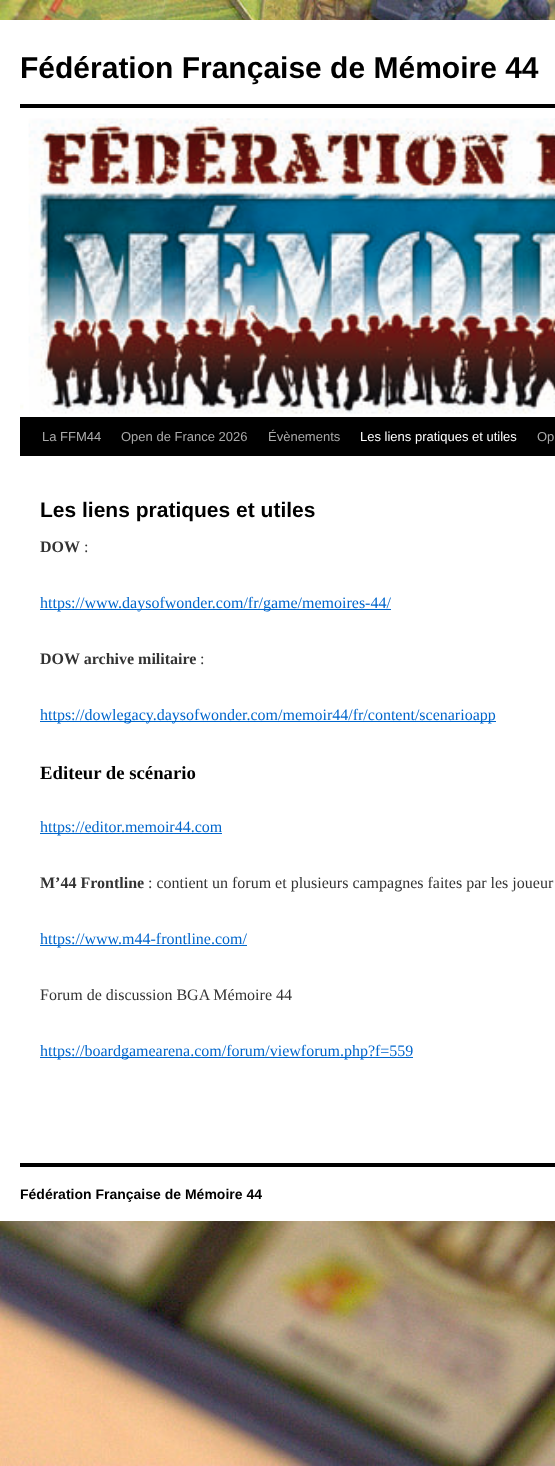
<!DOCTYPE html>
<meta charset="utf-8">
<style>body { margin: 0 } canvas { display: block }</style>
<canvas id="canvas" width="555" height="1466"></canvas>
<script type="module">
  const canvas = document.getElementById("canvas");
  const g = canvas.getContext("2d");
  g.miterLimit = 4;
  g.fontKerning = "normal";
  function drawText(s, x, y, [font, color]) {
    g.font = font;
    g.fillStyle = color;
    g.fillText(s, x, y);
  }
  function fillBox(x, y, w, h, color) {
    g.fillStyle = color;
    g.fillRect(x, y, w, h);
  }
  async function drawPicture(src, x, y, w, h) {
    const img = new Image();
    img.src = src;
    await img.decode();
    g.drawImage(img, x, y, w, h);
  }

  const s1 = ["bold 30px Liberation Sans", "#000000"];
  const s2 = ["13px Liberation Sans", "#AAAAAA"];
  const s3 = ["13px Liberation Sans", "#FFFFFF"];
  const s4 = ["bold 21px Liberation Sans", "#000000"];
  const s5 = ["bold 16px Liberation Serif", "#333333"];
  const s6 = ["16px Liberation Serif", "#333333"];
  const s7 = ["16px Liberation Serif", "#0066CC"];
  const s8 = ["bold 18.75px Liberation Serif", "#000000"];
  const s9 = ["bold 14px Liberation Sans", "#000000"];

  fillBox(0, 0, 555, 1466, "#FFFFFF");
  await drawPicture("pic1.png", 0, 0, 555, 1466);
  fillBox(0, 20, 555, 1201, "#FFFFFF");
  drawText("Fédération Française de Mémoire 44", 20, 78, s1);
  fillBox(20, 104, 535, 4, "#000000");
  fillBox(20, 417, 535, 39, "#000000");
  await drawPicture("pic2.png", 20, 118, 535, 296);
  drawText("La FFM44", 42, 441, s2);
  drawText("Open de France 2026", 121, 441, s2);
  drawText("Évènements", 268, 441, s2);
  drawText("Les liens pratiques et utiles", 360, 441, s3);
  drawText("Op", 537, 441, s2);
  drawText("Les liens pratiques et utiles", 40, 517, s4);
  drawText("DOW", 40, 552, s5);
  drawText(":", 84, 552, s6);
  fillBox(40, 609, 351, 1, "#0066CC");
  drawText("https://www.daysofwonder.com/fr/game/memoires-44/", 40, 608, s7);
  drawText("DOW archive militaire", 40, 664, s5);
  drawText(":", 200, 664, s6);
  fillBox(40, 721, 456, 1, "#0066CC");
  drawText("https://dowlegacy.daysofwonder.com/memoir44/fr/content/scenarioapp", 40, 720, s7);
  drawText("Editeur de scénario", 40, 779, s8);
  fillBox(40, 833, 182, 1, "#0066CC");
  drawText("https://editor.memoir44.com", 40, 832, s7);
  drawText("M’44 Frontline", 40, 888, s5);
  drawText(": contient un forum et plusieurs campagnes faites par les joueur", 148, 888, s6);
  fillBox(40, 945, 207, 1, "#0066CC");
  drawText("https://www.m44-frontline.com/", 40, 944, s7);
  drawText("Forum de discussion BGA Mémoire 44", 40, 1000, s6);
  fillBox(40, 1057, 373, 1, "#0066CC");
  drawText("https://boardgamearena.com/forum/viewforum.php?f=559", 40, 1056, s7);
  fillBox(20, 1163, 535, 4, "#000000");
  drawText("Fédération Française de Mémoire 44", 20, 1199, s9);
</script>
